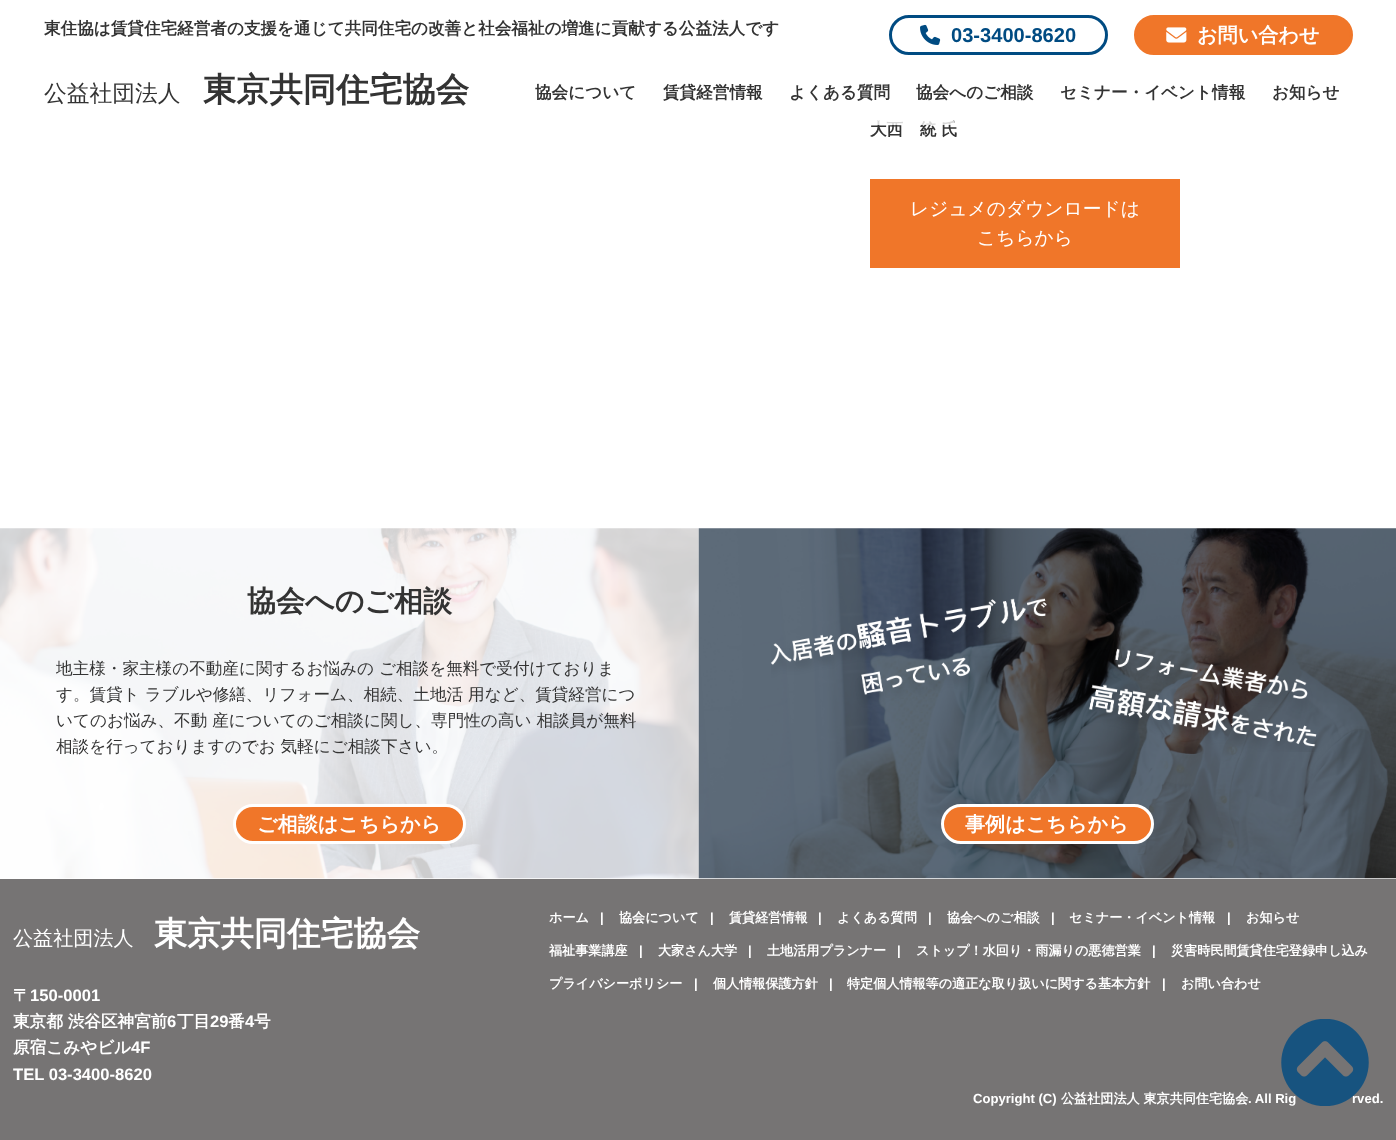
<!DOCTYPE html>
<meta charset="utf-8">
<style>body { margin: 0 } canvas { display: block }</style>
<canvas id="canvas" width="1396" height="1140"></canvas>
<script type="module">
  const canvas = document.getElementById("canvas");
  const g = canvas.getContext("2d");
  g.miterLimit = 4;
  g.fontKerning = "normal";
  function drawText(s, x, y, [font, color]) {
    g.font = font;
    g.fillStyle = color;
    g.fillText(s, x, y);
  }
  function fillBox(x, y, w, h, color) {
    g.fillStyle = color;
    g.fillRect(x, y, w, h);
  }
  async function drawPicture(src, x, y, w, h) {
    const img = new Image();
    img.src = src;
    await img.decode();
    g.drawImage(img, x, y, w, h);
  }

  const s1 = ["bold 16.6px WenQuanYi Zen Hei", "#333333"];
  const s2 = ["500 22.75px WenQuanYi Zen Hei", "#333333"];
  const s3 = ["bold 33.25px WenQuanYi Zen Hei", "#333333"];
  const s4 = ["bold 20.1px Liberation Sans", "#004B82"];
  const s5 = ["bold 20.1px WenQuanYi Zen Hei", "#FFFFFF"];
  const s6 = ["500 18.75px WenQuanYi Zen Hei", "#FFFFFF"];
  const s7 = ["bold 29px WenQuanYi Zen Hei", "#333333"];
  const s8 = ["500 16.6px WenQuanYi Zen Hei", "#333333"];
  const s9 = ["500 20.1px WenQuanYi Zen Hei", "#FFFFFF"];
  const s10 = ["bold 33.25px WenQuanYi Zen Hei", "#FFFFFF"];
  const s11 = ["bold 16.6px WenQuanYi Zen Hei", "#FFFFFF"];
  const s12 = ["bold 16.6px Liberation Sans", "#FFFFFF"];
  const s13 = ["bold 13.1px WenQuanYi Zen Hei", "#FFFFFF"];
  const s14 = ["bold 13.1px Liberation Sans", "#FFFFFF"];

  fillBox(0, 0, 1396, 1140, "#FFFFFF");
  drawText("大西　統 氏", 870, 135, s1);
  fillBox(877, 121, 77, 4, "rgba(255, 255, 255, 0.8)");
  drawText("東住協は賃貸住宅経営者の支援を通じて共同住宅の改善と社会福祉の増進に貢献する公益法人です", 44, 34, s1);
  drawText("公益社団法人", 44, 101, s2);
  drawText("東京共同住宅協会", 203, 101, s3);
  g.beginPath();
  g.roundRect(890.5, 16.5, 216, 37, 18.5);
  g.strokeStyle = "#004B82";
  g.lineWidth = 3;
  g.stroke();
  await drawPicture("pic1.png", 920, 24, 21, 21);
  drawText("03-3400-8620", 951, 42, s4);
  g.fillStyle = "#F07629";
  g.beginPath();
  g.roundRect(1135.5, 16.5, 216, 37, 18.5);
  g.fill();
  g.strokeStyle = "#F07629";
  g.stroke();
  await drawPicture("pic2.png", 1166, 27, 21, 16);
  drawText("お問い合わせ", 1197, 42, s5);
  drawText("協会について", 535, 98, s1);
  drawText("賃貸経営情報", 663, 98, s1);
  drawText("よくある質問", 789, 98, s1);
  drawText("協会へのご相談", 916, 98, s1);
  drawText("セミナー・イベント情報", 1060, 98, s1);
  drawText("お知らせ", 1272, 98, s1);
  fillBox(870, 179, 310, 89, "#F07629");
  drawText("レジュメのダウンロードは", 910, 215, s6);
  drawText("こちらから", 977, 244, s6);
  await drawPicture("pic3.png", 0, 528, 699, 351);
  drawText("協会へのご相談", 247, 611, s7);
  drawText("地主様・家主様の不動産に関するお悩みの ご相談を無料で受付けておりま", 56, 674, s8);
  drawText("す。賃貸ト ラブルや修繕、リフォーム、相続、土地活 用など、賃貸経営につ", 56, 700, s8);
  drawText("いてのお悩み、不動 産についてのご相談に関し、専門性の高い 相談員が無料", 56, 726, s8);
  drawText("相談を行っておりますのでお 気軽にご相談下さい。", 56, 752, s8);
  g.fillStyle = "#F07629";
  g.beginPath();
  g.roundRect(234.5, 805.5, 230, 37, 18.5);
  g.fill();
  g.strokeStyle = "#FFFFFF";
  g.stroke();
  drawText("ご相談はこちらから", 257, 831, s5);
  await drawPicture("pic4.png", 698, 528, 698, 351);
  await drawPicture("pic5.png", 771, 598, 546, 154);
  g.fillStyle = "#F07629";
  g.beginPath();
  g.roundRect(942.5, 805.5, 210, 37, 18.5);
  g.fill();
  g.stroke();
  drawText("事例はこちらから", 965, 831, s5);
  fillBox(0, 879, 1396, 261, "#767474");
  drawText("公益社団法人", 13, 945, s9);
  drawText("東京共同住宅協会", 154, 945, s10);
  drawText("〒", 13, 1001, s11);
  drawText("150-0001", 30, 1001, s12);
  drawText("東京都 渋谷区神宮前", 13, 1027, s11);
  drawText("6", 167, 1027, s12);
  drawText("丁目", 177, 1027, s11);
  drawText("29", 210, 1027, s12);
  drawText("番", 228, 1027, s11);
  drawText("4", 245, 1027, s12);
  drawText("号", 254, 1027, s11);
  drawText("原宿こみやビル", 13, 1053, s11);
  drawText("4F", 131, 1053, s12);
  drawText("TEL 03-3400-8620", 13, 1080, s12);
  drawText("ホーム", 549, 922, s13);
  drawText("|", 600, 922, s14);
  drawText("協会について", 619, 922, s13);
  drawText("|", 710, 922, s14);
  drawText("賃貸経営情報", 729, 922, s13);
  drawText("|", 818, 922, s14);
  drawText("よくある質問", 837, 922, s13);
  drawText("|", 928, 922, s14);
  drawText("協会へのご相談", 947, 922, s13);
  drawText("|", 1051, 922, s14);
  drawText("セミナー・イベント情報", 1069, 922, s13);
  drawText("|", 1227, 922, s14);
  drawText("お知らせ", 1246, 922, s13);
  drawText("福祉事業講座", 549, 955, s13);
  drawText("|", 639, 955, s14);
  drawText("大家さん大学", 658, 955, s13);
  drawText("|", 748, 955, s14);
  drawText("土地活用プランナー", 767, 955, s13);
  drawText("|", 897, 955, s14);
  drawText("ストップ！水回り・雨漏りの悪徳営業", 916, 955, s13);
  drawText("|", 1152, 955, s14);
  drawText("災害時民間賃貸住宅登録申し込み", 1171, 955, s13);
  drawText("プライバシーポリシー", 549, 988, s13);
  drawText("|", 694, 988, s14);
  drawText("個人情報保護方針", 713, 988, s13);
  drawText("|", 829, 988, s14);
  drawText("特定個人情報等の適正な取り扱いに関する基本方針", 847, 988, s13);
  drawText("|", 1162, 988, s14);
  drawText("お問い合わせ", 1181, 988, s13);
  drawText("Copyright (C)", 973, 1103, s14);
  drawText("公益社団法人 東京共同住宅協会", 1061, 1103, s13);
  drawText(". All Rig", 1248, 1103, s14);
  drawText("rved.", 1352, 1103, s14);
  await drawPicture("pic6.png", 1281, 1019, 88, 87);
</script>
